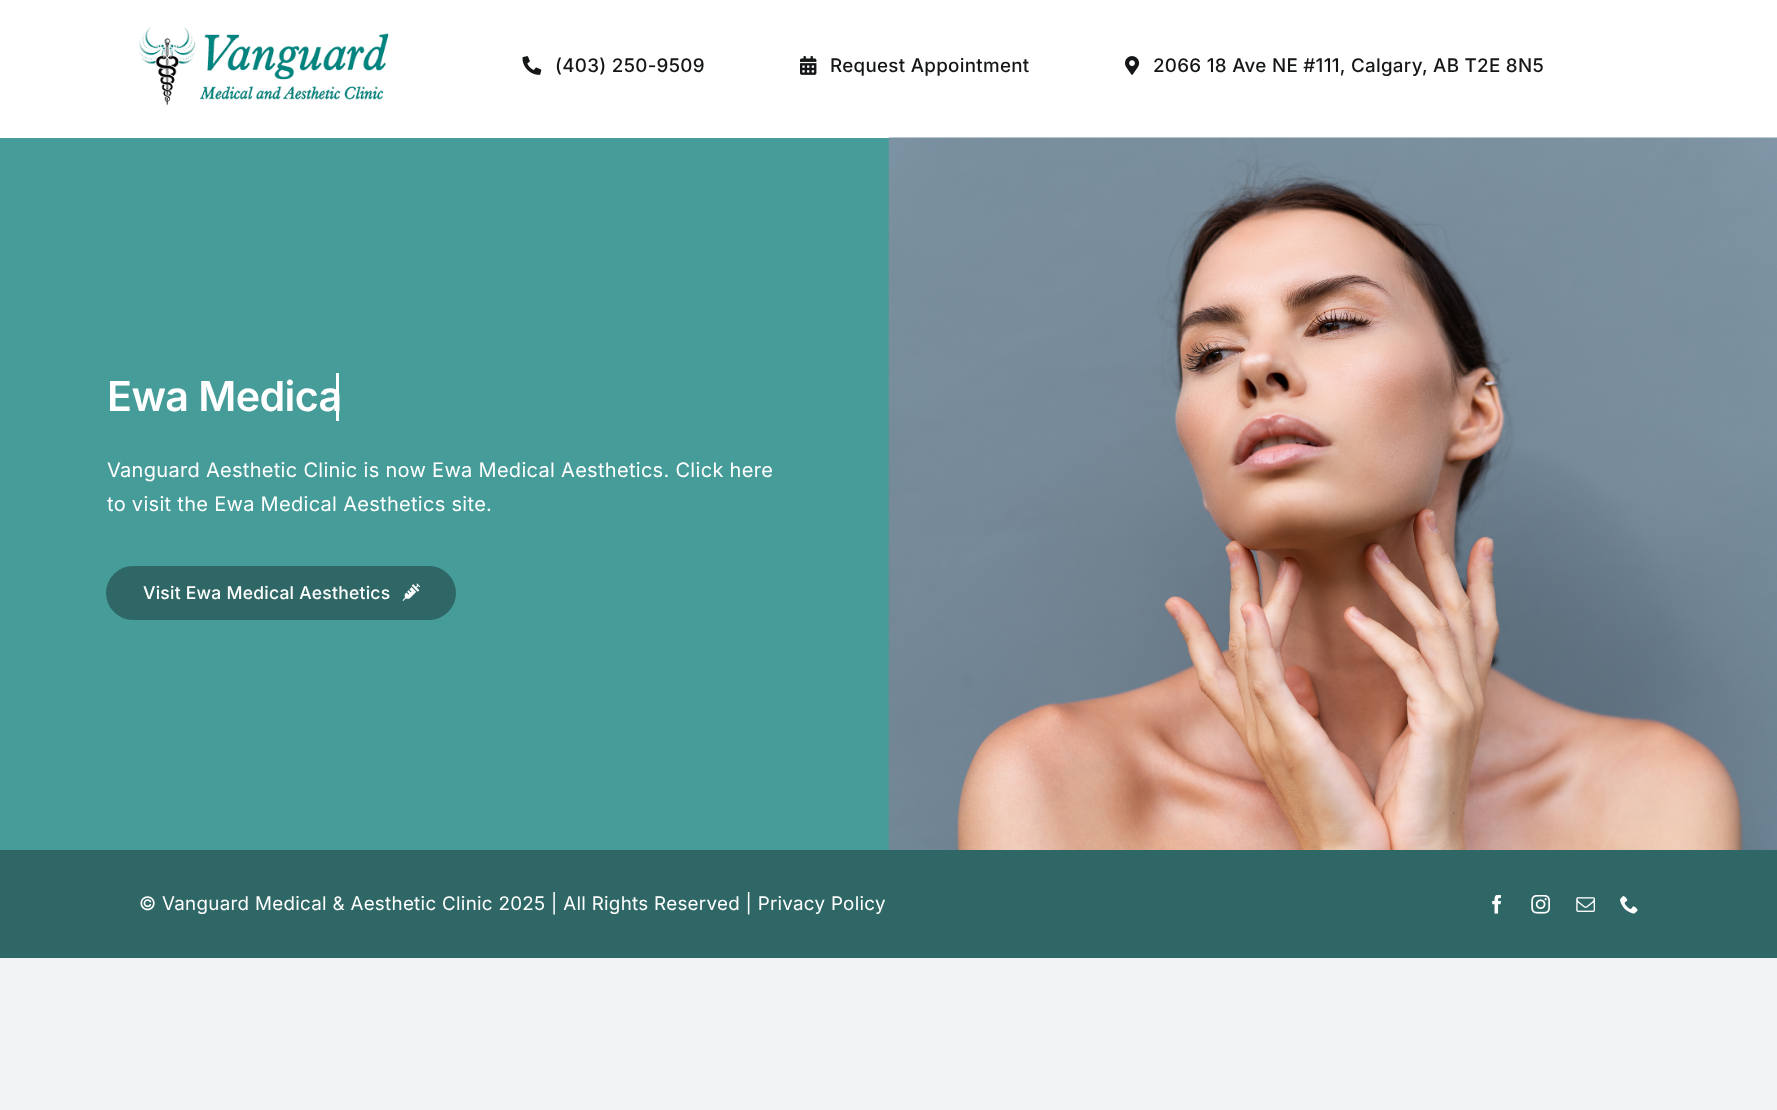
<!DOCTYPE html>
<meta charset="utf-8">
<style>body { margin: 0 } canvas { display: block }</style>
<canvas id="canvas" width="1777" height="1110"></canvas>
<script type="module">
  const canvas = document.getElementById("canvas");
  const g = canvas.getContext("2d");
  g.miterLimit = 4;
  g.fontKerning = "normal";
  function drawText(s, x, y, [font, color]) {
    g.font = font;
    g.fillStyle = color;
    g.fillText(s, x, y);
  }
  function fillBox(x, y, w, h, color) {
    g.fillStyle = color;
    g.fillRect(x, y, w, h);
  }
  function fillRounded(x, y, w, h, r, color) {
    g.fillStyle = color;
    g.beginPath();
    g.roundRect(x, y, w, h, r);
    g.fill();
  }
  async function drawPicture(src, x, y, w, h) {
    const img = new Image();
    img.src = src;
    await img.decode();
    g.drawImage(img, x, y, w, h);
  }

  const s1 = ["500 18.75px Inter", "#141617"];
  const s2 = ["600 41.25px Inter", "#FFFFFF"];
  const s3 = ["20px Inter", "#FFFFFF"];
  const s4 = ["500 17.5px Inter", "#FFFFFF"];
  const s5 = ["18.75px Inter", "#FFFFFF"];

  fillBox(0, 0, 1777, 1110, "#F2F3F5");
  fillBox(0, 0, 1777, 138, "#FFFFFF");
  await drawPicture("pic1.png", 139, 26, 250, 80);
  await drawPicture("pic2.png", 522, 56, 20, 19);
  g.letterSpacing = "0.3px";
  drawText("(403) 250-9509", 555, 72, s1);
  await drawPicture("pic3.png", 800, 56, 17, 19);
  drawText("Request Appointment", 830, 72, s1);
  await drawPicture("pic4.png", 1125, 56, 15, 19);
  drawText("2066 18 Ave NE #111, Calgary, AB T2E 8N5", 1153, 72, s1);
  fillBox(0, 138, 889, 712, "#459C99");
  fillBox(336, 373, 3, 48, "#FFFFFF");
  g.letterSpacing = "-0.6px";
  drawText("Ewa Medica", 107, 411, s2);
  g.letterSpacing = "0.3px";
  drawText("Vanguard Aesthetic Clinic is now Ewa Medical Aesthetics. Click here", 107, 477, s3);
  drawText("to visit the Ewa Medical Aesthetics site.", 107, 511, s3);
  fillRounded(106, 566, 350, 54, 27, "#2E6765");
  g.letterSpacing = "0.25px";
  drawText("Visit Ewa Medical Aesthetics", 143, 599, s4);
  await drawPicture("pic5.png", 402, 583, 18, 18);
  await drawPicture("pic6.png", 888, 137, 889, 713);
  fillBox(0, 850, 1777, 108, "#2E6765");
  g.letterSpacing = "0.3px";
  drawText("© Vanguard Medical & Aesthetic Clinic 2025 | All Rights Reserved | Privacy Policy", 139, 910, s5);
  await drawPicture("pic7.png", 1492, 895, 9, 19);
  await drawPicture("pic8.png", 1531, 895, 19, 19);
  await drawPicture("pic9.png", 1576, 897, 19, 15);
  await drawPicture("pic10.png", 1620, 896, 18, 18);
</script>
